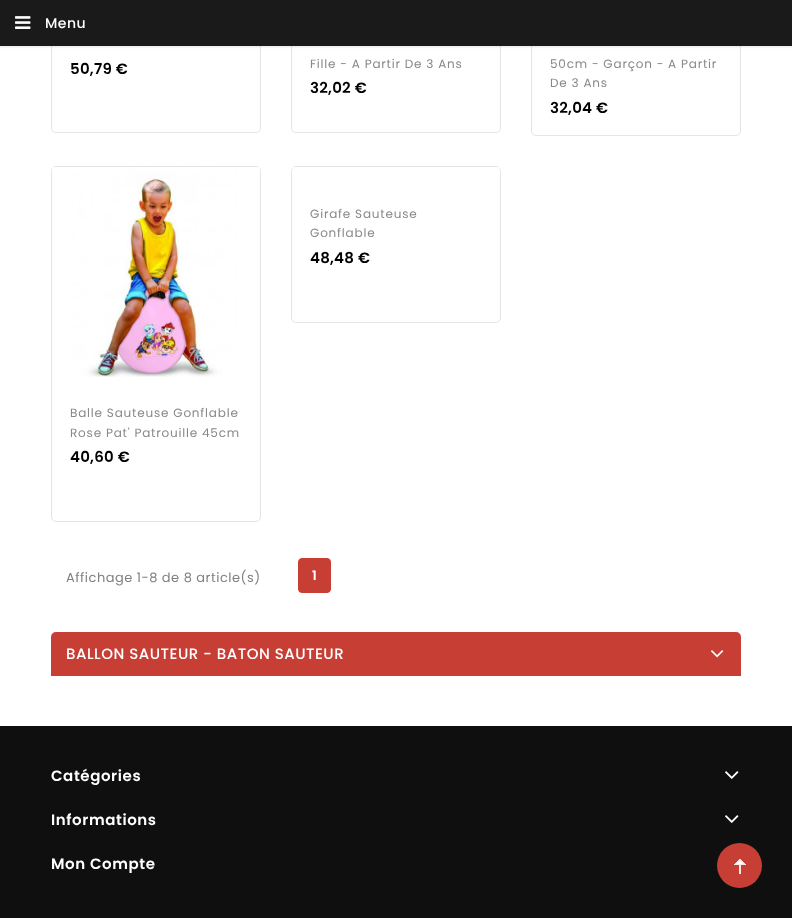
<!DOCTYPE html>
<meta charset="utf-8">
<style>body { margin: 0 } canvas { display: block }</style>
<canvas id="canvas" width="792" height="918"></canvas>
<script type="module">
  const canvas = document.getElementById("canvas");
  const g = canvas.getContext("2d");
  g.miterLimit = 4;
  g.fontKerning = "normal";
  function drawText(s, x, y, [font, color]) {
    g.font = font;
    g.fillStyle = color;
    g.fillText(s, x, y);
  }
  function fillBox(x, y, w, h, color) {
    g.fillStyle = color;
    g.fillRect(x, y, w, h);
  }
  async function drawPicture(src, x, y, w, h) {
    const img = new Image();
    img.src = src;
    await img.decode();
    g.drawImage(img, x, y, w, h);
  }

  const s1 = ["500 14px Poppins", "#FFFFFF"];
  const s2 = ["600 15px Poppins", "#000000"];
  const s3 = ["12px Poppins", "#888888"];
  const s4 = ["13px Poppins", "#808080"];
  const s5 = ["600 13px Poppins", "#FFFFFF"];
  const s6 = ["500 15px Poppins", "#FFFFFF"];
  const s7 = ["600 15px Poppins", "#FFFFFF"];

  fillBox(0, 0, 792, 918, "#FFFFFF");
  g.beginPath();
  g.roundRect(51.5, -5.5, 209, 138, 4.5);
  g.strokeStyle = "#E5E5E5";
  g.stroke();
  g.beginPath();
  g.roundRect(291.5, -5.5, 209, 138, 4.5);
  g.stroke();
  g.beginPath();
  g.roundRect(531.5, -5.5, 209, 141, 4.5);
  g.stroke();
  g.fillStyle = "rgba(0, 0, 0, 0.1)";
  g.filter = "blur(1px)";
  g.beginPath();
  g.rect(-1, -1, 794, 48);
  g.fill();
  g.filter = "none";
  fillBox(0, 0, 792, 46, "#1A1A1A");
  await drawPicture("pic1.png", 15, 16, 16, 13);
  g.letterSpacing = "0.5px";
  drawText("Menu", 45, 28, s1);
  g.letterSpacing = "0.25px";
  drawText("50,79 €", 70, 74, s2);
  g.letterSpacing = "0.8px";
  drawText("Fille - A Partir De 3 Ans", 310, 68, s3);
  g.letterSpacing = "0.25px";
  drawText("32,02 €", 310, 93, s2);
  g.letterSpacing = "0.8px";
  drawText("50cm - Garçon - A Partir", 550, 68, s3);
  drawText("De 3 Ans", 550, 87, s3);
  g.letterSpacing = "0.25px";
  drawText("32,04 €", 550, 113, s2);
  g.beginPath();
  g.roundRect(291.5, 166.5, 209, 156, 4.5);
  g.stroke();
  g.fillStyle = "#FFFFFF";
  g.beginPath();
  g.roundRect(292, 167, 208, 25, [4, 4, 0, 0]);
  g.fill();
  g.letterSpacing = "0.8px";
  drawText("Girafe Sauteuse", 310, 218, s3);
  drawText("Gonflable", 310, 237, s3);
  g.letterSpacing = "0.25px";
  drawText("48,48 €", 310, 263, s2);
  g.beginPath();
  g.roundRect(51.5, 166.5, 209, 355, 4.5);
  g.stroke();
  g.fillStyle = "#FFFFFF";
  g.beginPath();
  g.roundRect(52, 167, 208, 224, [4, 4, 0, 0]);
  g.fill();
  await drawPicture("pic2.png", 52, 167, 208, 210);
  g.letterSpacing = "0.8px";
  drawText("Balle Sauteuse Gonflable", 70, 417, s3);
  drawText("Rose Pat' Patrouille 45cm", 70, 437, s3);
  g.letterSpacing = "0.25px";
  drawText("40,60 €", 70, 462, s2);
  g.letterSpacing = "0.5px";
  drawText("Affichage 1-8 de 8 article(s)", 66, 582, s4);
  g.fillStyle = "#C73E35";
  g.beginPath();
  g.roundRect(298.5, 558.5, 32, 34, 3.5);
  g.fill();
  g.strokeStyle = "#C73E35";
  g.stroke();
  drawText("1", 312, 580, s5);
  g.fillStyle = "#C73E35";
  g.beginPath();
  g.roundRect(51, 632, 690, 44, [5, 5, 0, 0]);
  g.fill();
  drawText("BALLON SAUTEUR - BATON SAUTEUR", 66, 659, s6);
  await drawPicture("pic3.png", 711, 650, 13, 8);
  fillBox(0, 726, 792, 192, "#0F0F0F");
  g.letterSpacing = "0.6px";
  drawText("Catégories", 51, 781, s7);
  await drawPicture("pic4.png", 725, 771, 14, 8);
  drawText("Informations", 51, 825, s7);
  await drawPicture("pic4.png", 725, 815, 14, 8);
  drawText("Mon Compte", 51, 869, s7);
  g.fillStyle = "#C73E35";
  g.beginPath();
  g.arc(739.5, 865.5, 22.5, 0, Math.PI * 2);
  g.fill();
  await drawPicture("pic5.png", 734, 859, 12, 15);
</script>
